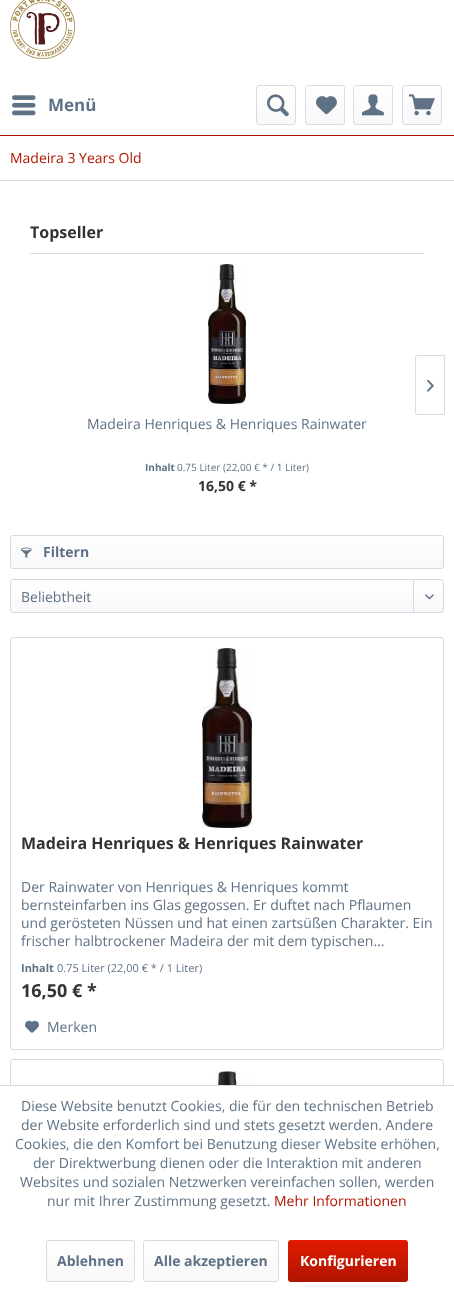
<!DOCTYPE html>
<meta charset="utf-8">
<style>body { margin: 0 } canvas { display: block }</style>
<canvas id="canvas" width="454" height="1292"></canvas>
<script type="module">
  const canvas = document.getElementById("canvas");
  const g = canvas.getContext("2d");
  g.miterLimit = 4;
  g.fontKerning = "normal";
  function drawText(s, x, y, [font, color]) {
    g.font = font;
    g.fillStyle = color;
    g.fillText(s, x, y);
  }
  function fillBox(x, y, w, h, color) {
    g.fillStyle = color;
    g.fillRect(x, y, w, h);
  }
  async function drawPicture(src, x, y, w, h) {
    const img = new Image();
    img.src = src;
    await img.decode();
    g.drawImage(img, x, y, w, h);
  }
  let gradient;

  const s1 = ["bold 17px Open Sans", "#5F7285"];
  const s2 = ["14px Open Sans", "#AF1500"];
  const s3 = ["bold 16px Open Sans", "#333333"];
  const s4 = ["14px Open Sans", "#5F7285"];
  const s5 = ["bold 10px Open Sans", "#5F7285"];
  const s6 = ["10px Open Sans", "#5F7285"];
  const s7 = ["bold 14px Open Sans", "#333333"];
  const s8 = ["bold 14px Open Sans", "#5F7285"];
  const s9 = ["bold 11px Open Sans", "#5F7285"];
  const s10 = ["11px Open Sans", "#5F7285"];
  const s11 = ["bold 18px Open Sans", "#333333"];
  const s12 = ["bold 14px Open Sans", "#FFFFFF"];

  fillBox(0, 0, 454, 1292, "#FFFFFF");
  fillBox(0, 135, 454, 1, "#AF1500");
  await drawPicture("pic1.png", 10, 0, 65, 59);
  await drawPicture("pic2.png", 12, 95, 24, 21);
  drawText("Menü", 48, 111, s1);
  gradient = g.createLinearGradient(276, 86, 276, 124);
  gradient.addColorStop(0, "#FFFFFF");
  gradient.addColorStop(1, "#F8F8FA");
  g.fillStyle = gradient;
  g.beginPath();
  g.roundRect(257, 86, 38, 38, 2);
  g.fill();
  g.beginPath();
  g.roundRect(256.5, 85.5, 39, 39, 2.5);
  g.strokeStyle = "#DADAE5";
  g.stroke();
  await drawPicture("pic3.png", 267, 94, 22, 23);
  gradient = g.createLinearGradient(325, 86, 325, 124);
  gradient.addColorStop(0, "#FFFFFF");
  gradient.addColorStop(1, "#F8F8FA");
  g.fillStyle = gradient;
  g.beginPath();
  g.roundRect(306, 86, 38, 38, 2);
  g.fill();
  g.beginPath();
  g.roundRect(305.5, 85.5, 39, 39, 2.5);
  g.stroke();
  await drawPicture("pic4.png", 316, 96, 21, 19);
  gradient = g.createLinearGradient(373, 86, 373, 124);
  gradient.addColorStop(0, "#FFFFFF");
  gradient.addColorStop(1, "#F8F8FA");
  g.fillStyle = gradient;
  g.beginPath();
  g.roundRect(354, 86, 38, 38, 2);
  g.fill();
  g.beginPath();
  g.roundRect(353.5, 85.5, 39, 39, 2.5);
  g.stroke();
  await drawPicture("pic5.png", 362, 94, 22, 22);
  gradient = g.createLinearGradient(422, 86, 422, 124);
  gradient.addColorStop(0, "#FFFFFF");
  gradient.addColorStop(1, "#F8F8FA");
  g.fillStyle = gradient;
  g.beginPath();
  g.roundRect(403, 86, 38, 38, 2);
  g.fill();
  g.beginPath();
  g.roundRect(402.5, 85.5, 39, 39, 2.5);
  g.stroke();
  await drawPicture("pic6.png", 409, 94, 26, 22);
  fillBox(0, 180, 454, 1, "#DADAE5");
  drawText("Madeira 3 Years Old", 10, 163, s2);
  fillBox(30, 253, 394, 1, "#DADAE5");
  drawText("Topseller", 30, 238, s3);
  g.beginPath();
  g.roundRect(415.5, 355.5, 29, 59, [2.5, 0, 0, 2.5]);
  g.stroke();
  await drawPicture("pic7.png", 427, 379, 7, 13);
  await drawPicture("pic8.png", 208, 264, 38, 140);
  drawText("Madeira Henriques & Henriques Rainwater", 87, 429, s4);
  drawText("Inhalt", 145, 471, s5);
  drawText("0.75 Liter (22,00 € * / 1 Liter)", 177, 471, s6);
  drawText("16,50 € *", 198, 491, s7);
  gradient = g.createLinearGradient(227, 536, 227, 568);
  gradient.addColorStop(0, "#FFFFFF");
  gradient.addColorStop(1, "#F8F8FA");
  g.fillStyle = gradient;
  g.beginPath();
  g.roundRect(11, 536, 432, 32, 2);
  g.fill();
  g.beginPath();
  g.roundRect(10.5, 535.5, 433, 33, 2.5);
  g.stroke();
  await drawPicture("pic9.png", 21, 547, 11, 11);
  drawText("Filtern", 43, 557, s8);
  gradient = g.createLinearGradient(227, 580, 227, 612);
  gradient.addColorStop(0, "#FFFFFF");
  gradient.addColorStop(1, "#F8F8FA");
  g.fillStyle = gradient;
  g.beginPath();
  g.roundRect(11, 580, 432, 32, 2);
  g.fill();
  g.beginPath();
  g.roundRect(10.5, 579.5, 433, 33, 2.5);
  g.stroke();
  drawText("Beliebtheit", 21, 602, s4);
  fillBox(413, 580, 1, 33, "#DADAE5");
  await drawPicture("pic10.png", 425, 594, 9, 6);
  g.beginPath();
  g.roundRect(10.5, 637.5, 433, 412, 2.5);
  g.stroke();
  await drawPicture("pic11.png", 202, 648, 50, 180);
  drawText("Madeira Henriques & Henriques Rainwater", 21, 849, s3);
  drawText("Der Rainwater von Henriques & Henriques kommt", 21, 892, s4);
  drawText("bernsteinfarben ins Glas gegossen. Er duftet nach Pflaumen", 21, 910, s4);
  drawText("und gerösteten Nüssen und hat einen zartsüßen Charakter. Ein", 21, 928, s4);
  drawText("frischer halbtrockener Madeira der mit dem typischen...", 21, 946, s4);
  drawText("Inhalt", 21, 972, s9);
  drawText("0.75 Liter (22,00 € * / 1 Liter)", 57, 972, s10);
  drawText("16,50 € *", 21, 997, s11);
  await drawPicture("pic12.png", 25, 1020, 14, 13);
  drawText("Merken", 47, 1032, s4);
  g.beginPath();
  g.roundRect(10.5, 1059.5, 433, 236, 2.5);
  g.stroke();
  await drawPicture("pic13.png", 201, 1070, 52, 15);
  fillBox(10, 1086, 434, 206, "#FFFFFF");
  fillBox(0, 1085, 454, 1, "#DADAE5");
  drawText("Diese Website benutzt Cookies, die für den technischen Betrieb", 21, 1111, s4);
  drawText("der Website erforderlich sind und stets gesetzt werden. Andere", 21, 1130, s4);
  drawText("Cookies, die den Komfort bei Benutzung dieser Website erhöhen,", 15, 1149, s4);
  drawText("der Direktwerbung dienen oder die Interaktion mit anderen", 33, 1168, s4);
  drawText("Websites und sozialen Netzwerken vereinfachen sollen, werden", 20, 1187, s4);
  drawText("nur mit Ihrer Zustimmung gesetzt.", 47, 1206, s4);
  drawText("Mehr Informationen", 274, 1206, s2);
  gradient = g.createLinearGradient(91, 1241, 91, 1281);
  gradient.addColorStop(0, "#FFFFFF");
  gradient.addColorStop(1, "#F8F8FA");
  g.fillStyle = gradient;
  g.beginPath();
  g.roundRect(47, 1241, 87, 40, 2);
  g.fill();
  g.beginPath();
  g.roundRect(46.5, 1240.5, 88, 41, 2.5);
  g.stroke();
  drawText("Ablehnen", 57, 1266, s8);
  gradient = g.createLinearGradient(211, 1241, 211, 1281);
  gradient.addColorStop(0, "#FFFFFF");
  gradient.addColorStop(1, "#F8F8FA");
  g.fillStyle = gradient;
  g.beginPath();
  g.roundRect(144, 1241, 134, 40, 2);
  g.fill();
  g.beginPath();
  g.roundRect(143.5, 1240.5, 135, 41, 2.5);
  g.stroke();
  drawText("Alle akzeptieren", 154, 1266, s8);
  gradient = g.createLinearGradient(348, 1240, 348, 1282);
  gradient.addColorStop(0, "#E21B00");
  gradient.addColorStop(1, "#AF1500");
  g.fillStyle = gradient;
  g.beginPath();
  g.roundRect(288, 1240, 120, 42, 3);
  g.fill();
  drawText("Konfigurieren", 300, 1266, s12);
</script>
